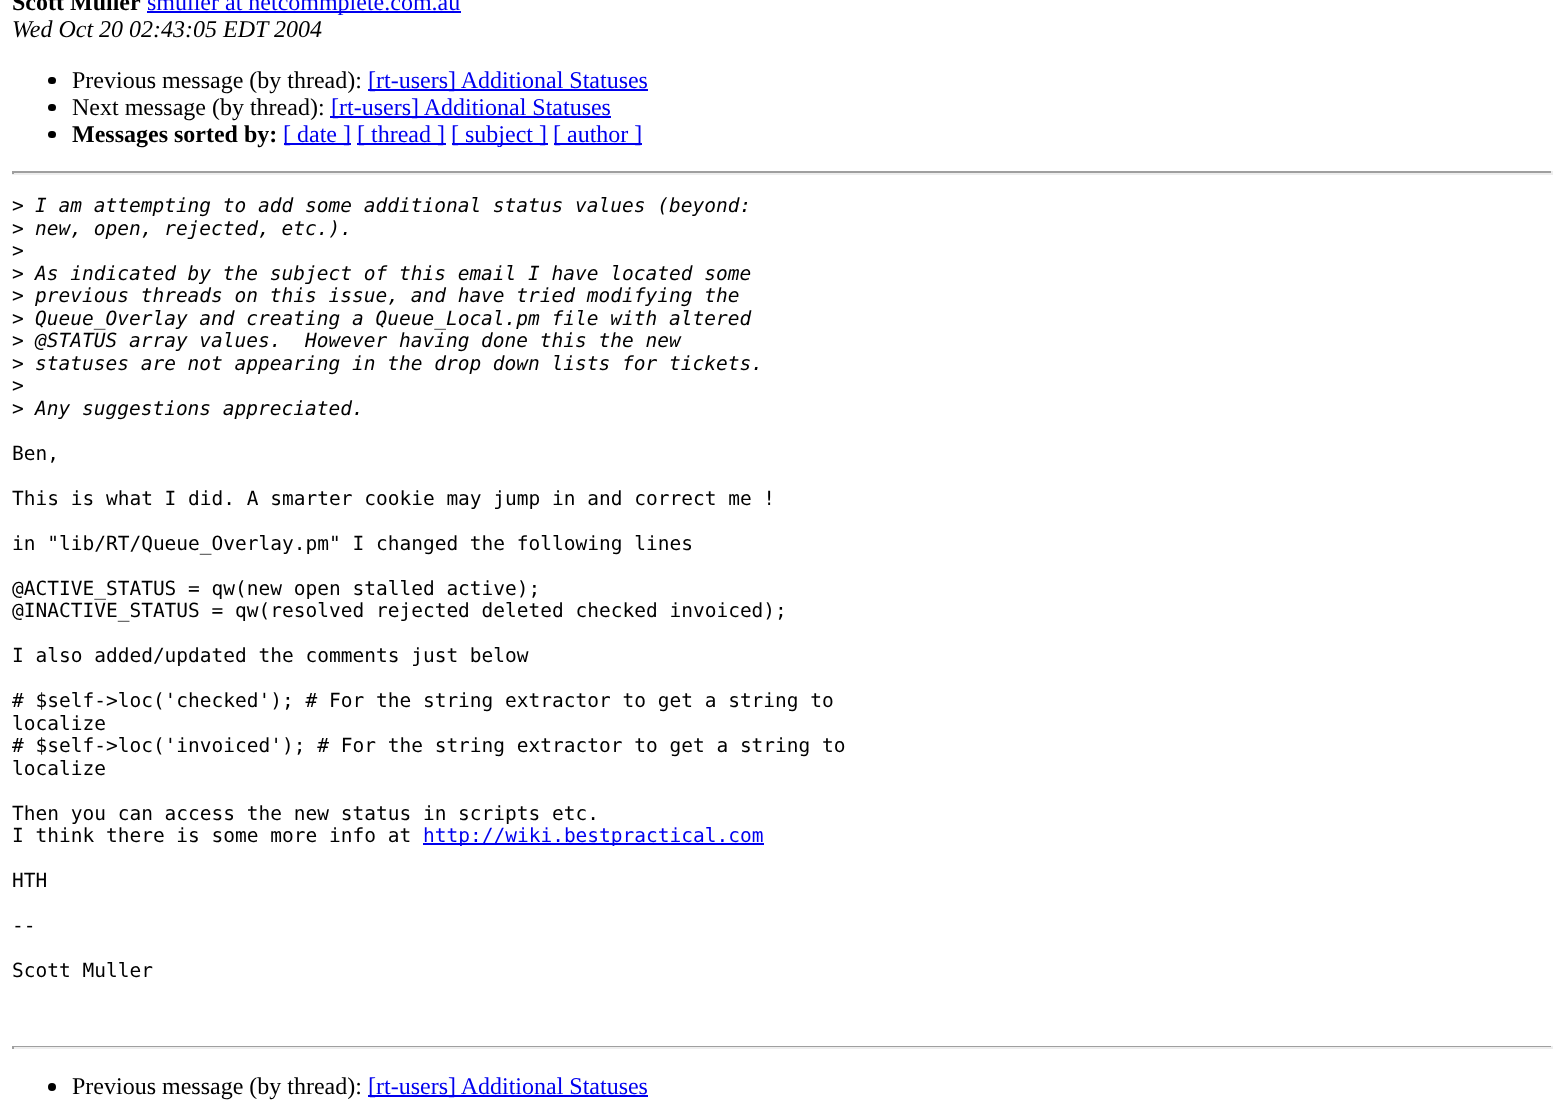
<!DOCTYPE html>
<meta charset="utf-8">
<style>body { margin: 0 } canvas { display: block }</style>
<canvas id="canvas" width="1564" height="1107"></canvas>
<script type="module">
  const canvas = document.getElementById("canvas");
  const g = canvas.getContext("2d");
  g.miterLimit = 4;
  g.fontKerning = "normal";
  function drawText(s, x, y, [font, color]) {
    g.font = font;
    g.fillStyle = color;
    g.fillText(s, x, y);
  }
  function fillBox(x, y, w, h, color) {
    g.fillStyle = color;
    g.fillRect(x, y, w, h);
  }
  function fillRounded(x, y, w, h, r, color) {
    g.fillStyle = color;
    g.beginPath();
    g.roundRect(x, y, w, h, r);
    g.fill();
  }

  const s1 = ["bold 24px Liberation Serif", "#000000"];
  const s2 = ["24px Liberation Serif", "#0000EE"];
  const s3 = ["italic 24px Liberation Serif", "#000000"];
  const s4 = ["24px Liberation Serif", "#000000"];
  const s5 = ["19.5px DejaVu Sans Mono", "#000000"];
  const s6 = ["italic 19.5px DejaVu Sans Mono", "#000000"];
  const s7 = ["19.5px DejaVu Sans Mono", "#0000EE"];

  fillBox(0, 0, 1564, 1107, "#FFFFFF");
  drawText("Scott Muller", 12, 10, s1);
  fillBox(147, 11, 314, 2, "#0000EE");
  drawText("smuller at netcommplete.com.au", 147, 10, s2);
  drawText("Wed Oct 20 02:43:05 EDT 2004", 12, 37, s3);
  fillRounded(48, 77, 8, 7, 3.5, "#000000");
  drawText("Previous message (by thread):", 72, 88, s4);
  fillBox(368, 89, 280, 2, "#0000EE");
  drawText("[rt-users] Additional Statuses", 368, 88, s2);
  fillRounded(48, 104, 8, 7, 3.5, "#000000");
  drawText("Next message (by thread):", 72, 115, s4);
  fillBox(330, 116, 281, 2, "#0000EE");
  drawText("[rt-users] Additional Statuses", 331, 115, s2);
  fillRounded(48, 131, 8, 7, 3.5, "#000000");
  drawText("Messages sorted by:", 72, 142, s1);
  fillBox(284, 143, 67, 2, "#0000EE");
  drawText("[ date ]", 283, 142, s2);
  fillBox(357, 143, 89, 2, "#0000EE");
  drawText("[ thread ]", 357, 142, s2);
  fillBox(452, 143, 96, 2, "#0000EE");
  drawText("[ subject ]", 451, 142, s2);
  fillBox(554, 143, 88, 2, "#0000EE");
  drawText("[ author ]", 553, 142, s2);
  fillBox(12, 171, 1541, 2, "#9F9F9F");
  fillBox(1551, 171, 2, 3, "#EEEEEE");
  fillBox(12, 173, 1541, 2, "#EEEEEE");
  fillBox(12, 171, 2, 3, "#9F9F9F");
  drawText(">", 12, 212, s5);
  drawText("I am attempting to add some additional status values (beyond:", 35, 212, s6);
  drawText(">", 12, 235, s5);
  drawText("new, open, rejected, etc.).", 35, 235, s6);
  drawText(">", 12, 257, s5);
  drawText(">", 12, 280, s5);
  drawText("As indicated by the subject of this email I have located some", 35, 280, s6);
  drawText(">", 12, 302, s5);
  drawText("previous threads on this issue, and have tried modifying the", 35, 302, s6);
  drawText(">", 12, 325, s5);
  drawText("Queue_Overlay and creating a Queue_Local.pm file with altered", 35, 325, s6);
  drawText(">", 12, 347, s5);
  drawText("@STATUS array values.  However having done this the new", 35, 347, s6);
  drawText(">", 12, 370, s5);
  drawText("statuses are not appearing in the drop down lists for tickets.", 35, 370, s6);
  drawText(">", 12, 392, s5);
  drawText(">", 12, 415, s5);
  drawText("Any suggestions appreciated.", 35, 415, s6);
  drawText("Ben,", 12, 460, s5);
  drawText("This is what I did. A smarter cookie may jump in and correct me !", 12, 505, s5);
  drawText("in \"lib/RT/Queue_Overlay.pm\" I changed the following lines", 12, 550, s5);
  drawText("@ACTIVE_STATUS = qw(new open stalled active);", 12, 595, s5);
  drawText("@INACTIVE_STATUS = qw(resolved rejected deleted checked invoiced);", 12, 617, s5);
  drawText("I also added/updated the comments just below", 12, 662, s5);
  drawText("# $self->loc('checked'); # For the string extractor to get a string to", 12, 707, s5);
  drawText("localize", 12, 730, s5);
  drawText("# $self->loc('invoiced'); # For the string extractor to get a string to", 12, 752, s5);
  drawText("localize", 12, 775, s5);
  drawText("Then you can access the new status in scripts etc.", 12, 820, s5);
  drawText("I think there is some more info at", 12, 842, s5);
  fillBox(423, 843, 341, 2, "#0000EE");
  drawText("http://wiki.bestpractical.com", 423, 842, s7);
  drawText("HTH", 12, 887, s5);
  drawText("--", 12, 932, s5);
  drawText("Scott Muller", 12, 977, s5);
  fillBox(12, 1046, 1541, 1, "#9F9F9F");
  fillBox(1551, 1046, 2, 3, "#EEEEEE");
  fillBox(12, 1047, 1541, 2, "#EEEEEE");
  fillBox(12, 1046, 2, 3, "#9F9F9F");
  g.fillStyle = "#000000";
  g.beginPath();
  g.arc(52, 1087, 4, 0, Math.PI * 2);
  g.fill();
  drawText("Previous message (by thread):", 72, 1094, s4);
  fillBox(368, 1095, 280, 2, "#0000EE");
  drawText("[rt-users] Additional Statuses", 368, 1094, s2);
</script>
